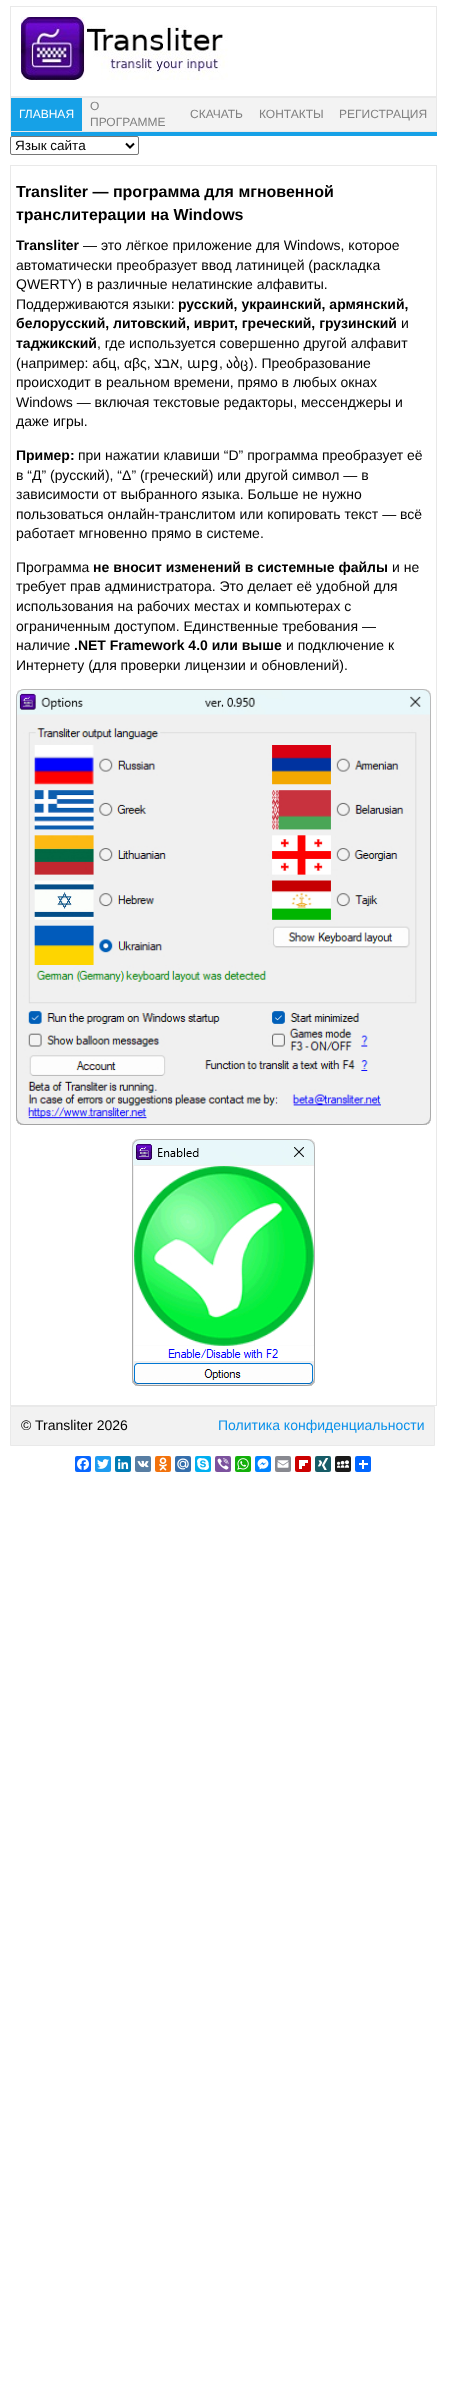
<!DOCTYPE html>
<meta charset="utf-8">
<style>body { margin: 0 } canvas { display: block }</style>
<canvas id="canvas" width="449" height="2393"></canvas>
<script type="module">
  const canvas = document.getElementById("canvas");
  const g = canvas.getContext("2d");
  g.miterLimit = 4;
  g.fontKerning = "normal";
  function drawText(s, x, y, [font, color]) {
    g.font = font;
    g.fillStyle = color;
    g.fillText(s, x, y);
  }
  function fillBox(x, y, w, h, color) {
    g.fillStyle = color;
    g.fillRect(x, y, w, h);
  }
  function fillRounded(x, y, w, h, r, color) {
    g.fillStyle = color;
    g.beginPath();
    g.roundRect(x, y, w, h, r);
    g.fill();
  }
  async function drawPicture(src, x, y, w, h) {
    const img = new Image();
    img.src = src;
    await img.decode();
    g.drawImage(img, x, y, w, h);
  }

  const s1 = ["12px Liberation Sans", "#FFFFFF"];
  const s2 = ["12px Liberation Sans", "#808080"];
  const s3 = ["13.5px Liberation Sans", "#000000"];
  const s4 = ["bold 16px Liberation Sans", "#000000"];
  const s5 = ["bold 14px Liberation Sans", "#000000"];
  const s6 = ["14px Liberation Sans", "#000000"];
  const s7 = ["14px DejaVu Sans", "#000000"];
  const s8 = ["14px Liberation Sans", "#0B91EA"];

  fillBox(0, 0, 449, 2393, "#FFFFFF");
  g.strokeStyle = "#E9E9E9";
  g.strokeRect(10.5, 6.5, 426, 90);
  await drawPicture("pic1.png", 21, 17, 207, 63);
  fillBox(82, 98, 354, 33, "#F3F3F3");
  g.strokeRect(10.5, 97.5, 426, 34);
  fillBox(11, 98, 71, 33, "#16A1E7");
  drawText("ГЛАВНАЯ", 19, 118, s1);
  drawText("О", 90, 110, s2);
  drawText("ПРОГРАММЕ", 90, 126, s2);
  drawText("СКАЧАТЬ", 190, 118, s2);
  drawText("КОНТАКТЫ", 259, 118, s2);
  drawText("РЕГИСТРАЦИЯ", 339, 118, s2);
  fillBox(11, 132, 426, 4, "#16A1E7");
  g.beginPath();
  g.roundRect(10.5, 136.5, 128, 18, 1.5);
  g.strokeStyle = "#767676";
  g.stroke();
  g.beginPath();
  g.moveTo(126, 143.5);
  g.lineTo(130, 147.5);
  g.lineTo(134, 143.5);
  g.strokeStyle = "#000000";
  g.lineWidth = 2;
  g.stroke();
  drawText("Язык сайта", 15, 150, s3);
  g.strokeStyle = "#E9E9E9";
  g.lineWidth = 1;
  g.strokeRect(10.5, 165.5, 426, 1240);
  drawText("Transliter — программа для мгновенной", 16, 197, s4);
  drawText("транслитерации на Windows", 16, 220, s4);
  drawText("Transliter", 16, 250, s5);
  drawText("— это лёгкое приложение для Windows, которое", 83, 250, s6);
  drawText("автоматически преобразует ввод латиницей (раскладка", 16, 270, s6);
  drawText("QWERTY) в различные нелатинские алфавиты.", 16, 289, s6);
  drawText("Поддерживаются языки:", 16, 309, s6);
  drawText("русский, украинский, армянский,", 178, 309, s5);
  drawText("белорусский, литовский, иврит, греческий, грузинский", 16, 328, s5);
  drawText("и", 401, 328, s6);
  drawText("таджикский", 16, 348, s5);
  drawText(", где используется совершенно другой алфавит", 97, 348, s6);
  drawText("(например: абц, αβς,", 16, 368, s6);
  g.direction = "rtl";
  drawText("אבצ", 179, 368, s6);
  g.direction = "ltr";
  drawText(",", 179, 368, s6);
  drawText("աբց", 187, 368, s7);
  drawText(",", 219, 368, s6);
  drawText("აბც", 226, 368, s7);
  drawText("). Преобразование", 249, 368, s6);
  drawText("происходит в реальном времени, прямо в любых окнах", 16, 387, s6);
  drawText("Windows — включая текстовые редакторы, мессенджеры и", 16, 407, s6);
  drawText("даже игры.", 16, 426, s6);
  drawText("Пример:", 16, 460, s5);
  drawText("при нажатии клавиши “D” программа преобразует её", 78, 460, s6);
  drawText("в “Д” (русский), “Δ” (греческий) или другой символ — в", 16, 480, s6);
  drawText("зависимости от выбранного языка. Больше не нужно", 16, 499, s6);
  drawText("пользоваться онлайн-транслитом или копировать текст — всё", 16, 519, s6);
  drawText("работает мгновенно прямо в системе.", 16, 538, s6);
  drawText("Программа", 16, 572, s6);
  drawText("не вносит изменений в системные файлы", 93, 572, s5);
  drawText("и не", 392, 572, s6);
  drawText("требует прав администратора. Это делает её удобной для", 16, 591, s6);
  drawText("использования на рабочих местах и компьютерах с", 16, 611, s6);
  drawText("ограниченным доступом. Единственные требования —", 16, 631, s6);
  drawText("наличие", 16, 650, s6);
  drawText(".NET Framework 4.0 или выше", 74, 650, s5);
  drawText("и подключение к", 286, 650, s6);
  drawText("Интернету (для проверки лицензии и обновлений).", 16, 670, s6);
  await drawPicture("pic2.png", 16, 689, 415, 436);
  await drawPicture("pic3.png", 132, 1139, 183, 247);
  g.fillStyle = "#F2F2F2";
  g.beginPath();
  g.rect(10.5, 1406.5, 424, 39);
  g.fill();
  g.stroke();
  drawText("© Transliter 2026", 21, 1430, s6);
  drawText("Политика конфиденциальности", 218, 1430, s8);
  fillRounded(75, 1456, 16, 16, 2, "#0866FF");
  await drawPicture("pic4.png", 77, 1458, 12, 12);
  fillRounded(95, 1456, 16, 16, 2, "#1D9BF0");
  await drawPicture("pic5.png", 97, 1459, 12, 10);
  fillRounded(115, 1456, 16, 16, 2, "#007BB5");
  await drawPicture("pic6.png", 118, 1459, 11, 11);
  fillRounded(135, 1456, 16, 16, 2, "#587EA3");
  await drawPicture("pic7.png", 137, 1460, 12, 8);
  fillRounded(155, 1456, 16, 16, 2, "#F2720C");
  await drawPicture("pic8.png", 159, 1457, 8, 14);
  fillRounded(175, 1456, 16, 16, 2, "#356FAC");
  await drawPicture("pic9.png", 177, 1458, 12, 12);
  fillRounded(195, 1456, 16, 16, 2, "#00AFF0");
  await drawPicture("pic10.png", 197, 1458, 12, 12);
  fillRounded(215, 1456, 16, 16, 2, "#7C529E");
  await drawPicture("pic11.png", 217, 1458, 12, 12);
  fillRounded(235, 1456, 16, 16, 2, "#12AF0A");
  await drawPicture("pic12.png", 237, 1458, 12, 12);
  fillRounded(255, 1456, 16, 16, 2, "#0084FF");
  await drawPicture("pic13.png", 257, 1458, 12, 12);
  fillRounded(275, 1456, 16, 16, 2, "#888990");
  await drawPicture("pic14.png", 277, 1460, 12, 8);
  fillRounded(295, 1456, 16, 16, 2, "#CC0000");
  fillBox(299, 1463, 6, 3, "#FFFFFF");
  fillBox(299, 1460, 9, 3, "#FFFFFF");
  fillBox(299, 1460, 3, 9, "#FFFFFF");
  fillRounded(315, 1456, 16, 16, 2, "#165B66");
  await drawPicture("pic15.png", 317, 1458, 12, 12);
  fillRounded(335, 1456, 16, 16, 2, "#1A1A1A");
  await drawPicture("pic16.png", 337, 1460, 12, 8);
  fillRounded(355, 1456, 16, 16, 2, "#0166FF");
  fillBox(362, 1460, 2, 9, "#FFFFFF");
  fillBox(359, 1463, 9, 2, "#FFFFFF");
</script>
